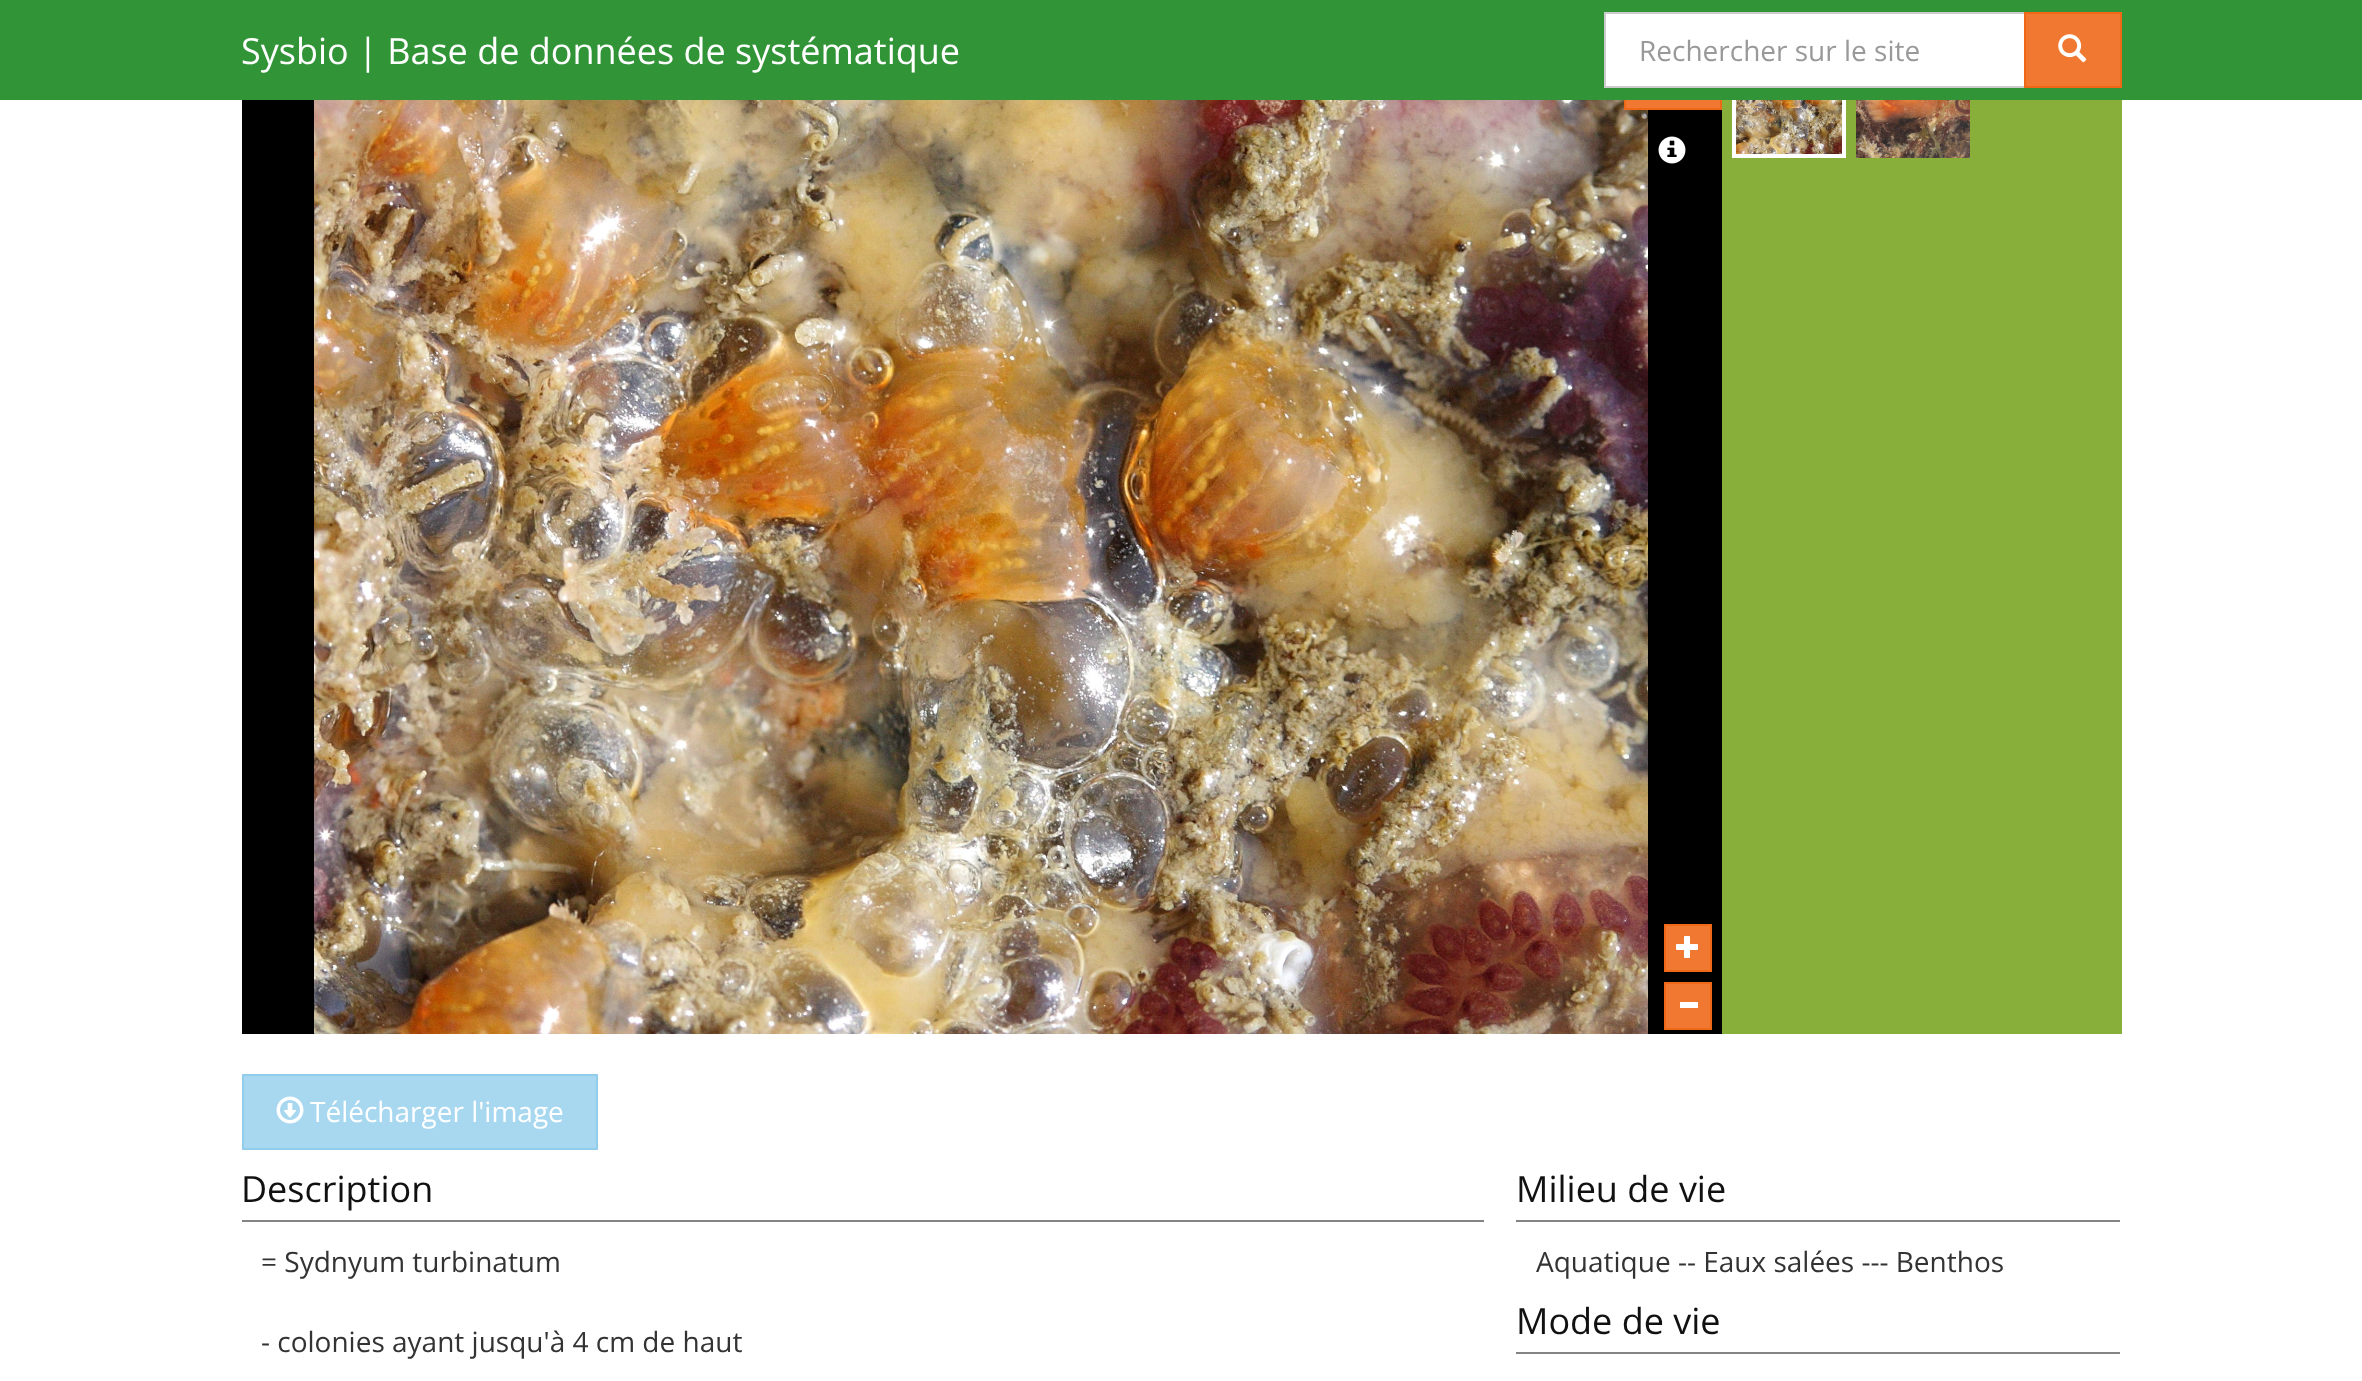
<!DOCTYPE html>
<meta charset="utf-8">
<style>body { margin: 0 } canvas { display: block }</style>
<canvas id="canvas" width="2362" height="1381"></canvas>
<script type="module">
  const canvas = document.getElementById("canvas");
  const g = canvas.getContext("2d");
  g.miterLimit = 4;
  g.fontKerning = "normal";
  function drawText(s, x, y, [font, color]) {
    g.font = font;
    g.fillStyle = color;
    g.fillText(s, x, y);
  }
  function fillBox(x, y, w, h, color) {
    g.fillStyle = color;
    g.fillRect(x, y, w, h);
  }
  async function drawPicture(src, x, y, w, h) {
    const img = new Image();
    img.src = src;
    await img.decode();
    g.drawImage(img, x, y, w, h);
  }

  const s1 = ["36px Open Sans", "#FFFFFF"];
  const s2 = ["28px Open Sans", "#999999"];
  const s3 = ["28px Open Sans", "#FFFFFF"];
  const s4 = ["36px Open Sans", "#111111"];
  const s5 = ["28px Open Sans", "#333333"];

  fillBox(0, 0, 2362, 1381, "#FFFFFF");
  fillBox(242, 100, 1480, 934, "#000000");
  await drawPicture("pic2.png", 314, 100, 1334, 934);
  fillBox(1626, 100, 94, 8, "#F07830");
  g.strokeStyle = "#EE6818";
  g.lineWidth = 2;
  g.strokeRect(1625, 35, 96, 74);
  fillBox(1722, 100, 400, 934, "#87AF3A");
  g.strokeStyle = "#FFFFFF";
  g.lineWidth = 4;
  g.strokeRect(1734, 46, 110, 110);
  fillBox(0, 0, 2362, 100, "#319437");
  drawText("Sysbio | Base de données de systématique", 241, 64, s1);
  g.beginPath();
  g.rect(1605, 13, 420, 74);
  g.fill();
  g.strokeStyle = "#CCCCCC";
  g.lineWidth = 2;
  g.stroke();
  drawText("Rechercher sur le site", 1639, 61, s2);
  g.fillStyle = "#F07830";
  g.beginPath();
  g.rect(2025, 13, 96, 74);
  g.fill();
  g.strokeStyle = "#EE6818";
  g.stroke();
  await drawPicture("pic1.png", 2058, 34, 29, 29);
  await drawPicture("pic3.png", 1658, 136, 28, 28);
  g.beginPath();
  g.rect(1665, 925, 46, 46);
  g.fill();
  g.stroke();
  await drawPicture("pic4.png", 1676, 936, 22, 22);
  g.beginPath();
  g.rect(1665, 983, 46, 46);
  g.fill();
  g.stroke();
  fillBox(1680, 1002, 18, 6, "#FFFFFF");
  await drawPicture("pic5.png", 1736, 100, 106, 54);
  await drawPicture("pic6.png", 1856, 100, 114, 58);
  g.fillStyle = "#A8D8F0";
  g.beginPath();
  g.rect(243, 1075, 354, 74);
  g.fill();
  g.strokeStyle = "#92CEEC";
  g.stroke();
  await drawPicture("pic7.png", 276, 1096, 28, 28);
  drawText("Télécharger l'image", 310, 1122, s3);
  fillBox(242, 1220, 1242, 2, "#848484");
  drawText("Description", 241, 1202, s4);
  drawText("= Sydnyum turbinatum", 261, 1272, s5);
  drawText("- colonies ayant jusqu'à 4 cm de haut", 261, 1352, s5);
  fillBox(1516, 1220, 604, 2, "#848484");
  drawText("Milieu de vie", 1516, 1202, s4);
  drawText("Aquatique -- Eaux salées --- Benthos", 1536, 1272, s5);
  fillBox(1516, 1352, 604, 2, "#848484");
  drawText("Mode de vie", 1516, 1334, s4);
</script>
